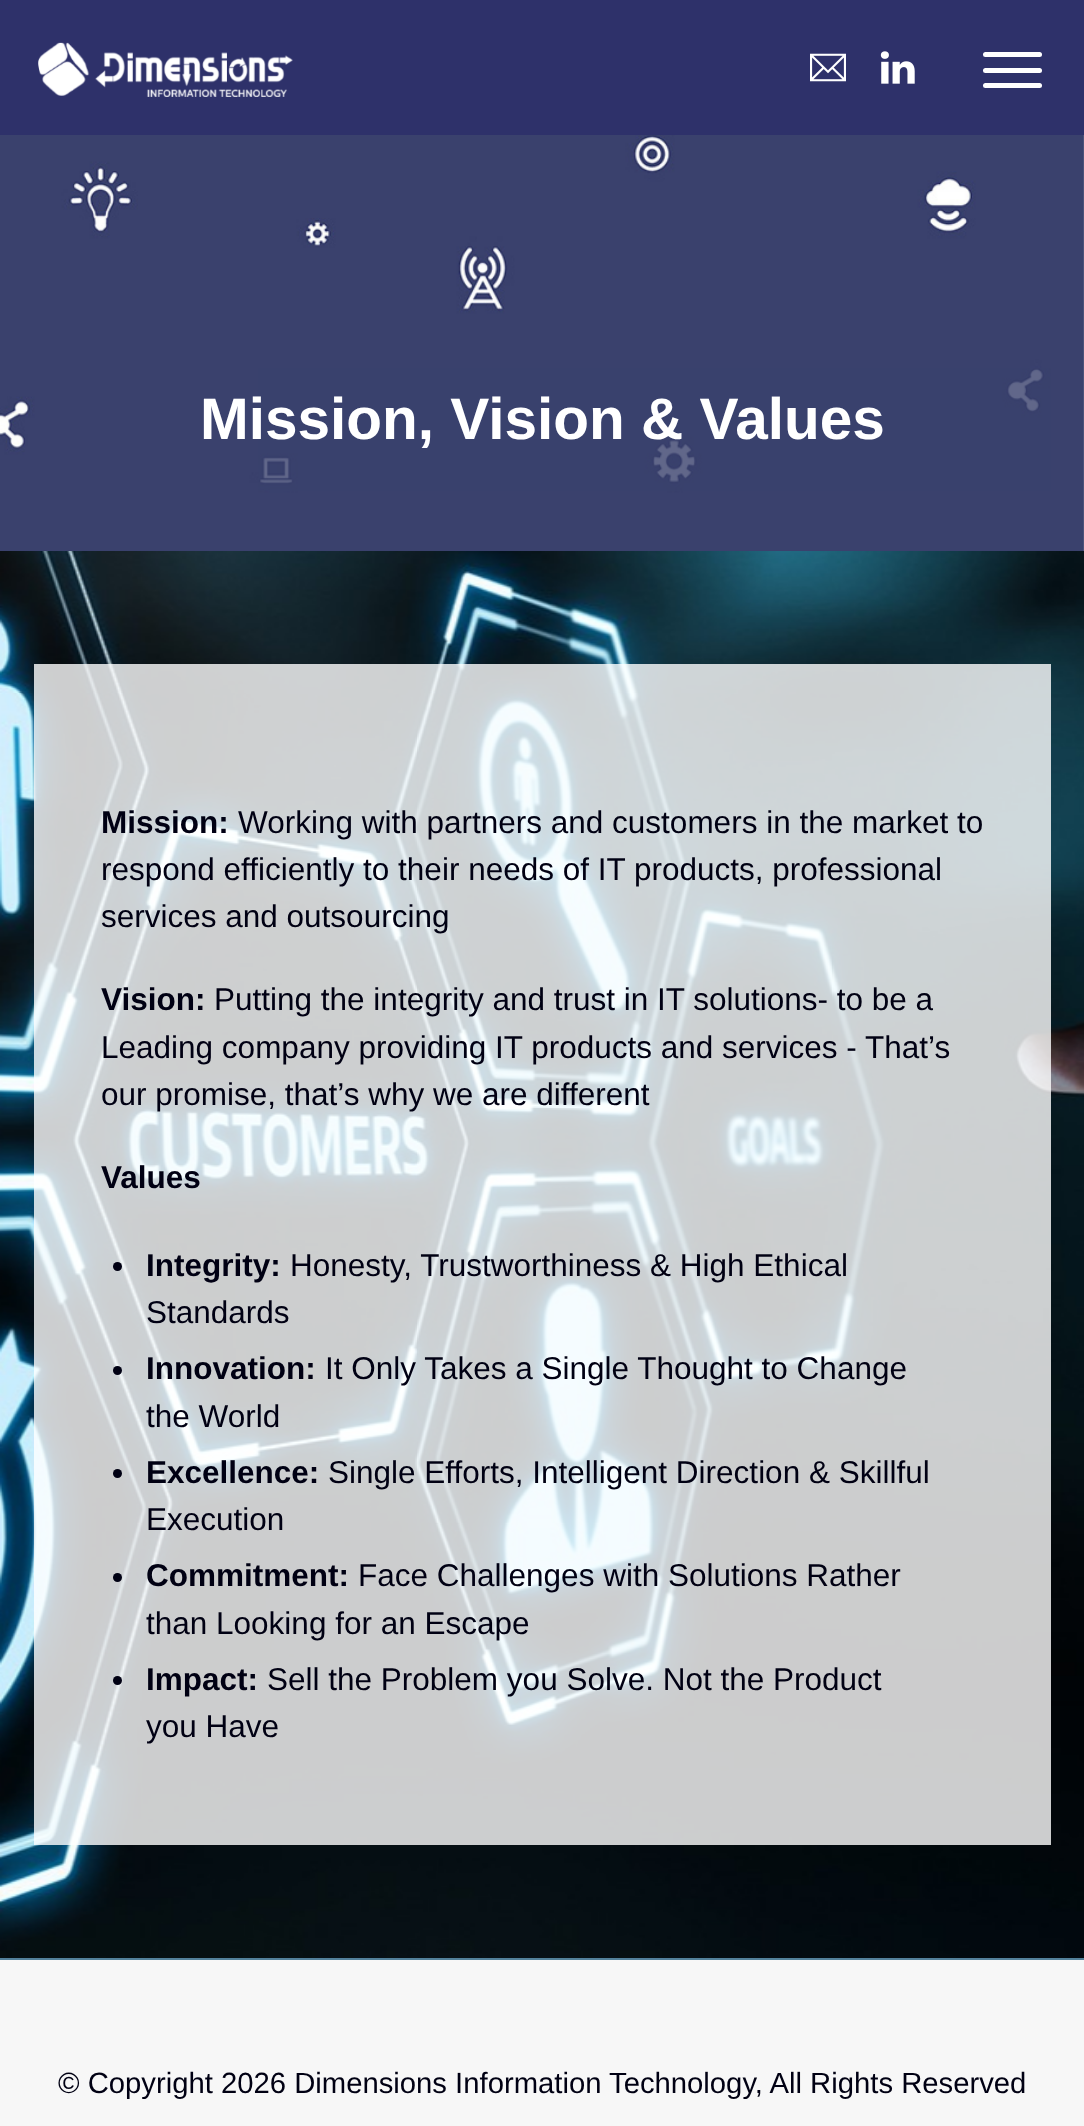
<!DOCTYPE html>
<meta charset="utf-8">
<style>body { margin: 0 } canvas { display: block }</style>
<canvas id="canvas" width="1084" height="2126"></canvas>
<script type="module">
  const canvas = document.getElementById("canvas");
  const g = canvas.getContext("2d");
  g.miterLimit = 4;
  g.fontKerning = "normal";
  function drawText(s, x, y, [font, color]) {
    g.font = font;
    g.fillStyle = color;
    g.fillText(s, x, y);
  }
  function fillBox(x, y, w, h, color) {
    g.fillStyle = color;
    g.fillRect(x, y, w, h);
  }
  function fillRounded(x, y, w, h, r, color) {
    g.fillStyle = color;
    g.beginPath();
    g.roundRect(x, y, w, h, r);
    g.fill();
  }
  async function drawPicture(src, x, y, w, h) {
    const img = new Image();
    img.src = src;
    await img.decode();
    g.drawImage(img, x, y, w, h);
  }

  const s1 = ["bold 58.5px Liberation Sans", "#FFFFFF"];
  const s2 = ["bold 31.5px Liberation Sans", "#000013"];
  const s3 = ["31.5px Liberation Sans", "#000013"];
  const s4 = ["29.25px Liberation Sans", "#000013"];

  fillBox(0, 0, 1084, 2126, "#FFFFFF");
  fillBox(0, 0, 1084, 135, "#2E316A");
  await drawPicture("pic1.png", 38, 42, 255, 55);
  fillRounded(983, 52, 59, 5, 2.5, "#FFFFFF");
  fillRounded(983, 68, 59, 5, 2.5, "#FFFFFF");
  fillRounded(983, 83, 59, 5, 2.5, "#FFFFFF");
  await drawPicture("pic2.png", 810, 53, 36, 29);
  await drawPicture("pic3.png", 880, 51, 35, 33);
  await drawPicture("pic4.png", 0, 135, 1084, 416);
  fillBox(258, 368, 793, 123, "rgba(58, 65, 109, 0.8)");
  drawText("Mission, Vision & Values", 200, 439, s1);
  await drawPicture("pic5.png", 0, 551, 1084, 1407);
  fillBox(34, 664, 1017, 1181, "rgba(255, 255, 255, 0.8)");
  drawText("Mission:", 101, 833, s2);
  drawText("Working with partners and customers in the market to", 238, 833, s3);
  drawText("respond efficiently to their needs of IT products, professional", 101, 880, s3);
  drawText("services and outsourcing", 101, 927, s3);
  drawText("Vision:", 101, 1010, s2);
  drawText("Putting the integrity and trust in IT solutions- to be a", 214, 1010, s3);
  drawText("Leading company providing IT products and services - That’s", 101, 1058, s3);
  drawText("our promise, that’s why we are different", 101, 1105, s3);
  drawText("Values", 101, 1188, s2);
  g.beginPath();
  g.arc(117.5, 1266.5, 4.5, 0, Math.PI * 2);
  g.fill();
  drawText("Integrity:", 146, 1276, s2);
  drawText("Honesty, Trustworthiness & High Ethical", 290, 1276, s3);
  drawText("Standards", 146, 1323, s3);
  g.beginPath();
  g.arc(117.5, 1370.5, 4.5, 0, Math.PI * 2);
  g.fill();
  drawText("Innovation:", 146, 1379, s2);
  drawText("It Only Takes a Single Thought to Change", 325, 1379, s3);
  drawText("the World", 146, 1427, s3);
  g.beginPath();
  g.arc(117.5, 1473.5, 4.5, 0, Math.PI * 2);
  g.fill();
  drawText("Excellence:", 146, 1483, s2);
  drawText("Single Efforts, Intelligent Direction & Skillful", 328, 1483, s3);
  drawText("Execution", 146, 1530, s3);
  g.beginPath();
  g.arc(117.5, 1577.5, 4.5, 0, Math.PI * 2);
  g.fill();
  drawText("Commitment:", 146, 1586, s2);
  drawText("Face Challenges with Solutions Rather", 358, 1586, s3);
  drawText("than Looking for an Escape", 146, 1634, s3);
  g.beginPath();
  g.arc(117.5, 1680.5, 4.5, 0, Math.PI * 2);
  g.fill();
  drawText("Impact:", 146, 1690, s2);
  drawText("Sell the Problem you Solve. Not the Product", 267, 1690, s3);
  drawText("you Have", 146, 1737, s3);
  fillBox(0, 1958, 1084, 2, "#52819B");
  fillBox(0, 1960, 1084, 166, "#F7F7F7");
  drawText("© Copyright 2026 Dimensions Information Technology, All Rights Reserved", 58, 2093, s4);
</script>
